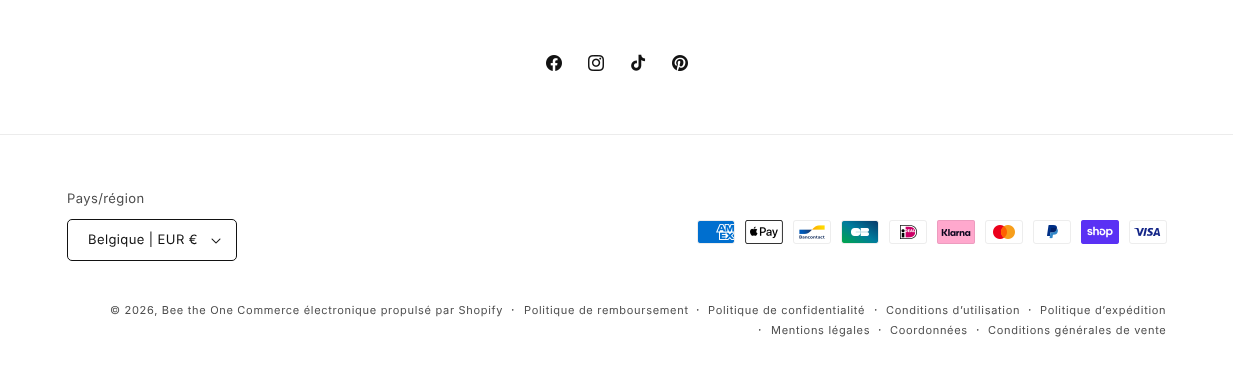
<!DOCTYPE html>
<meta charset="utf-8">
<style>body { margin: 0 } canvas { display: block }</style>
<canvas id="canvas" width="1233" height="392"></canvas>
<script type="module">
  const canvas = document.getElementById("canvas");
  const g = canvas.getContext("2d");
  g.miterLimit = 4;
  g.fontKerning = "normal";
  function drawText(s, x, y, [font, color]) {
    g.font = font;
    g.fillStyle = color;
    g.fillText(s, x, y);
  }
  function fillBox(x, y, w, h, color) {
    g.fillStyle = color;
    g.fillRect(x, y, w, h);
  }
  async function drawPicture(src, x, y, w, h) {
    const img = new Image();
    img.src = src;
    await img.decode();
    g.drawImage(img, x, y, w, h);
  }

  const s1 = ["13px Inter", "#4D4D4D"];
  const s2 = ["13px Inter", "#121212"];
  const s3 = ["11px Inter", "#4D4D4D"];
  const s4 = ["12px Inter", "#4D4D4D"];

  fillBox(0, 0, 1233, 392, "#FFFFFF");
  await drawPicture("pic1.png", 546, 55, 16, 16);
  await drawPicture("pic2.png", 588, 55, 16, 16);
  await drawPicture("pic3.png", 631, 54, 15, 17);
  await drawPicture("pic4.png", 672, 55, 16, 16);
  fillBox(0, 134, 1233, 1, "#ECECEC");
  g.letterSpacing = "0.4px";
  drawText("Pays/région", 67, 203, s1);
  await drawPicture("pic5.png", 211, 238, 10, 6);
  g.beginPath();
  g.roundRect(67.5, 219.5, 169, 41, 4.5);
  g.strokeStyle = "#121212";
  g.stroke();
  drawText("Belgique | EUR €", 88, 244, s2);
  await drawPicture("pic6.png", 697, 220, 38, 24);
  await drawPicture("pic7.png", 745, 220, 38, 24);
  await drawPicture("pic8.png", 793, 220, 38, 24);
  await drawPicture("pic9.png", 841, 220, 38, 24);
  await drawPicture("pic10.png", 889, 220, 38, 24);
  await drawPicture("pic11.png", 937, 220, 38, 24);
  await drawPicture("pic12.png", 985, 220, 38, 24);
  await drawPicture("pic13.png", 1033, 220, 38, 24);
  await drawPicture("pic14.png", 1081, 220, 38, 24);
  await drawPicture("pic15.png", 1129, 220, 38, 24);
  g.letterSpacing = "0.7px";
  drawText("© 2026, Bee the One Commerce électronique propulsé par Shopify", 110, 314, s3);
  drawText("·", 511, 314, s4);
  drawText("Politique de remboursement", 524, 314, s3);
  drawText("·", 696, 314, s4);
  drawText("Politique de confidentialité", 708, 314, s3);
  drawText("·", 874, 314, s4);
  drawText("Conditions d’utilisation", 886, 314, s3);
  drawText("·", 1028, 314, s4);
  drawText("Politique d’expédition", 1040, 314, s3);
  drawText("·", 758, 334, s4);
  drawText("Mentions légales", 771, 334, s3);
  drawText("·", 878, 334, s4);
  drawText("Coordonnées", 890, 334, s3);
  drawText("·", 976, 334, s4);
  drawText("Conditions générales de vente", 988, 334, s3);
</script>
